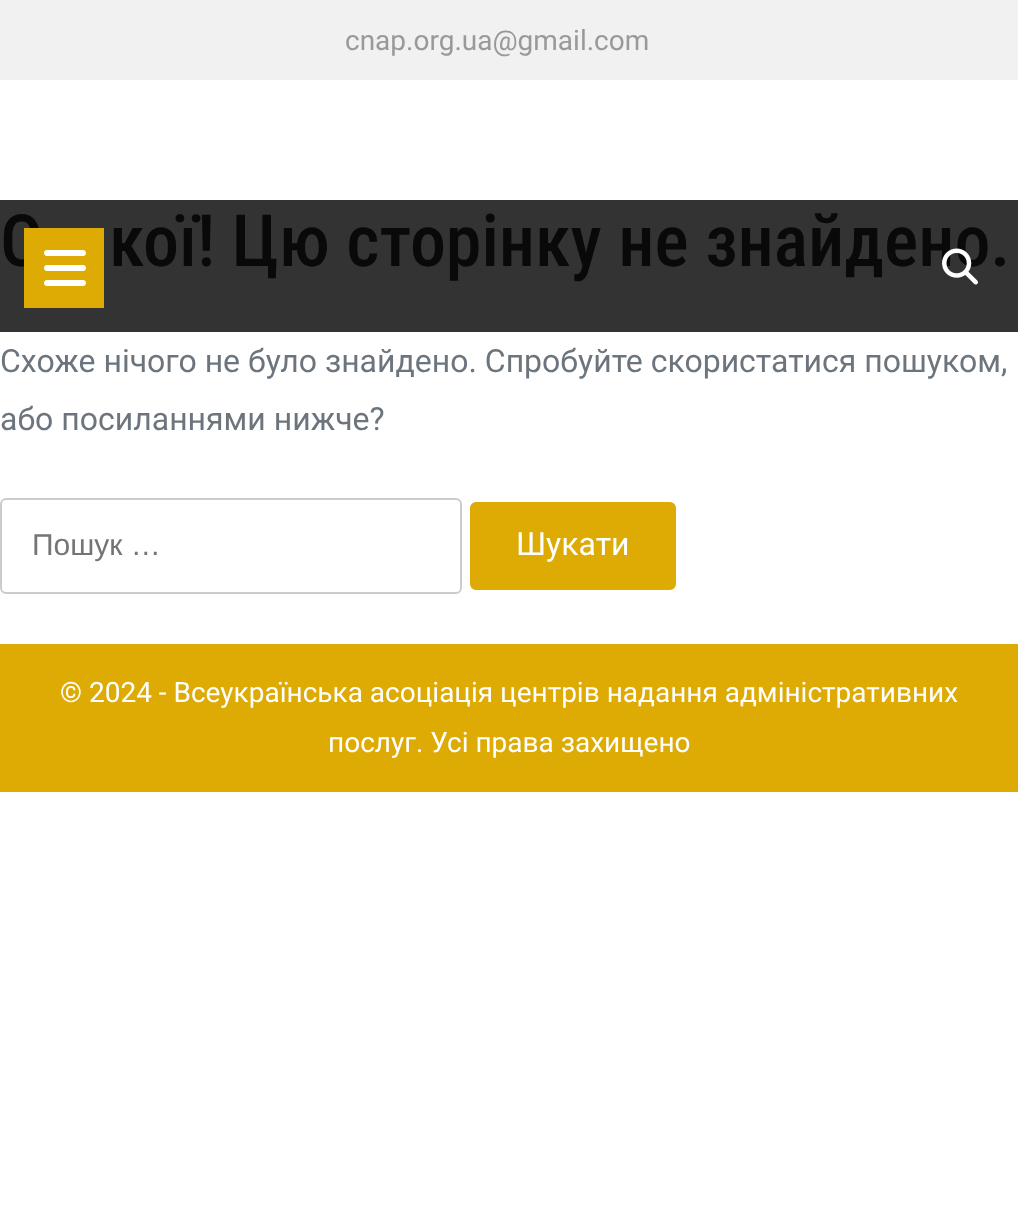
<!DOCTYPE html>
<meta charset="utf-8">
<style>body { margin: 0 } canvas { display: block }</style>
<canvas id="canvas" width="1018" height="1215"></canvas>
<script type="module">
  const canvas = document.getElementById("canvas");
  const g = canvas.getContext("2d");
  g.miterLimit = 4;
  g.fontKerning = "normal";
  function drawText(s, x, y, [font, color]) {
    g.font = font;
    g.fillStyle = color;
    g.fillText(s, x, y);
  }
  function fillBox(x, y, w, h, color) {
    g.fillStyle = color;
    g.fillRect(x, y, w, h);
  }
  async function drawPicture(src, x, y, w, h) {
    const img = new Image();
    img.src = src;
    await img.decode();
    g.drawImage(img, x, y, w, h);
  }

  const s1 = ["28px Roboto", "#999999"];
  const s2 = ["500 72px Roboto Condensed", "#090909"];
  const s3 = ["32px Roboto", "#6C757D"];
  const s4 = ["30px Liberation Sans", "#757575"];
  const s5 = ["32px Roboto", "#FFFFFF"];
  const s6 = ["28px Roboto", "#FFFFFF"];

  fillBox(0, 0, 1018, 1215, "#FFFFFF");
  fillBox(0, 200, 1018, 132, "#333333");
  fillBox(0, 0, 1018, 80, "#F1F1F1");
  drawText("cnap.org.ua@gmail.com", 345, 50, s1);
  drawText("О", 0, 266, s2);
  fillBox(24, 228, 80, 80, "#DDAB03");
  await drawPicture("pic1.png", 44, 250, 42, 36);
  drawText("кої! Цю сторінку не знайдено.", 109, 266, s2);
  await drawPicture("pic2.png", 942, 248, 36, 37);
  drawText("Схоже нічого не було знайдено. Спробуйте скористатися пошуком,", 0, 372, s3);
  drawText("або посиланнями нижче?", 0, 430, s3);
  g.beginPath();
  g.roundRect(1, 499, 460, 94, 5);
  g.strokeStyle = "#CCCCCC";
  g.lineWidth = 2;
  g.stroke();
  drawText("Пошук …", 32, 555, s4);
  g.fillStyle = "#DDAB03";
  g.beginPath();
  g.roundRect(471, 503, 204, 86, 5);
  g.fill();
  g.strokeStyle = "#DDAB03";
  g.stroke();
  drawText("Шукати", 516, 555, s5);
  fillBox(0, 644, 1018, 148, "#DDAB03");
  drawText("© 2024 - Всеукраїнська асоціація центрів надання адміністративних", 60, 702, s6);
  drawText("послуг. Усі права захищено", 328, 752, s6);
</script>
